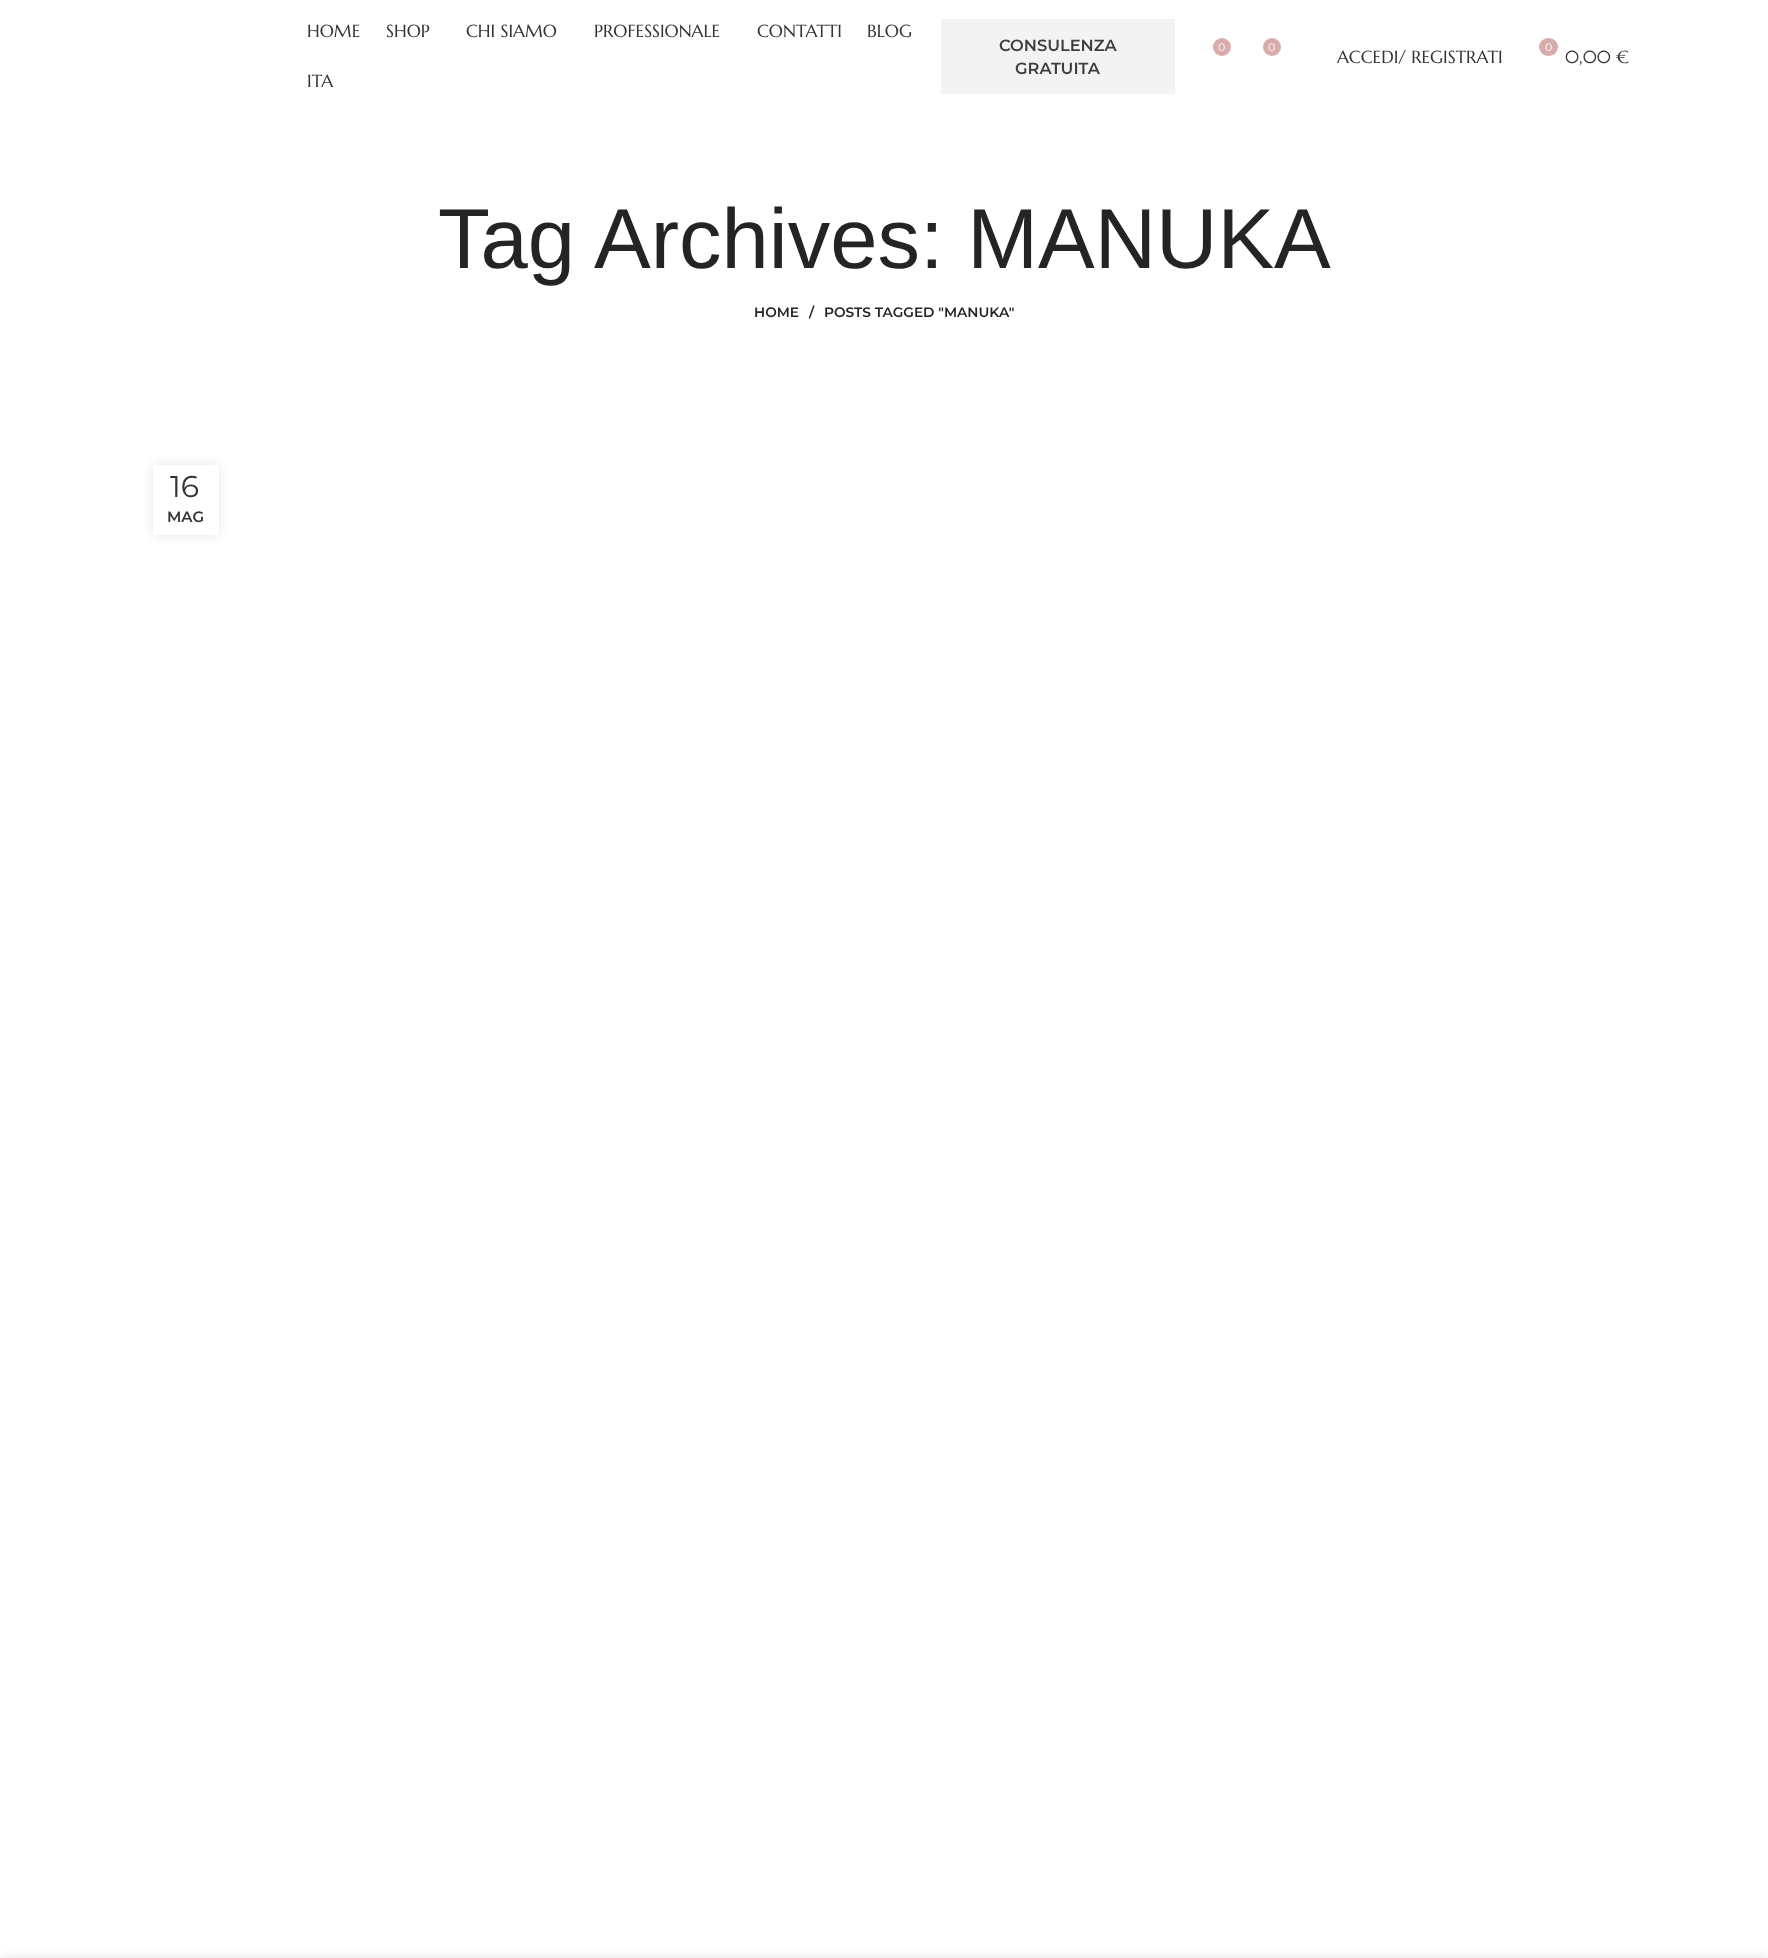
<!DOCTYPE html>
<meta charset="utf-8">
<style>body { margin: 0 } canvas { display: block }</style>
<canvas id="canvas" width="1768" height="1958"></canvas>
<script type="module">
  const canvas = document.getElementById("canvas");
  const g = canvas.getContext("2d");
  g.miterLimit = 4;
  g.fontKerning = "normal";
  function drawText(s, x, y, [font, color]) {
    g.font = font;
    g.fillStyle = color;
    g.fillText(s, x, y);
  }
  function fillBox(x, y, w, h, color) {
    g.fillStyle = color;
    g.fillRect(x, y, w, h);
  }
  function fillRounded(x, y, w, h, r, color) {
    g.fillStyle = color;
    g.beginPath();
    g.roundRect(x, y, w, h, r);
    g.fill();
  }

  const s1 = ["17.5px Marcellus", "#333333"];
  const s2 = ["600 16.25px Montserrat", "#3E3E3E"];
  const s3 = ["11px Montserrat", "#FFFFFF"];
  const s4 = ["85px Liberation Sans", "#242424"];
  const s5 = ["600 13.75px Montserrat", "#242424"];
  const s6 = ["30px Montserrat", "#333333"];
  const s7 = ["600 15px Montserrat", "#333333"];

  fillBox(0, 0, 1768, 1958, "#FFFFFF");
  drawText("HOME", 307, 37, s1);
  drawText("SHOP", 386, 37, s1);
  drawText("CHI SIAMO", 466, 37, s1);
  drawText("PROFESSIONALE", 594, 37, s1);
  drawText("CONTATTI", 757, 37, s1);
  drawText("BLOG", 867, 37, s1);
  drawText("ITA", 307, 87, s1);
  fillBox(941, 19, 234, 75, "#F3F3F3");
  drawText("CONSULENZA", 999, 51, s2);
  drawText("GRATUITA", 1015, 74, s2);
  g.fillStyle = "#D9ACAC";
  g.beginPath();
  g.arc(1222, 47, 9, 0, Math.PI * 2);
  g.fill();
  drawText("0", 1218, 51, s3);
  g.fillStyle = "#D9ACAC";
  g.beginPath();
  g.arc(1272, 47, 9, 0, Math.PI * 2);
  g.fill();
  drawText("0", 1268, 51, s3);
  drawText("ACCEDI/ REGISTRATI", 1337, 63, s1);
  fillRounded(1539, 38, 19, 18, 9, "#D9ACAC");
  drawText("0", 1545, 51, s3);
  drawText("0,00 €", 1565, 63, s1);
  drawText("Tag Archives: MANUKA", 438, 268, s4);
  drawText("HOME", 754, 317, s5);
  drawText("/", 809, 317, s5);
  drawText("POSTS TAGGED \"MANUKA\"", 824, 317, s5);
  g.fillStyle = "rgba(0, 0, 0, 0.1)";
  g.filter = "blur(5.5px)";
  g.beginPath();
  g.rect(153, 465, 66, 70);
  g.fill();
  g.filter = "none";
  fillBox(153, 465, 66, 70, "#FFFFFF");
  drawText("16", 170, 497, s6);
  drawText("MAG", 167, 522, s7);
  g.fillStyle = "rgba(0, 0, 0, 0.14)";
  g.filter = "blur(5.5px)";
  g.beginPath();
  g.rect(0, 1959, 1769, 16);
  g.fill();
  g.filter = "none";
</script>
